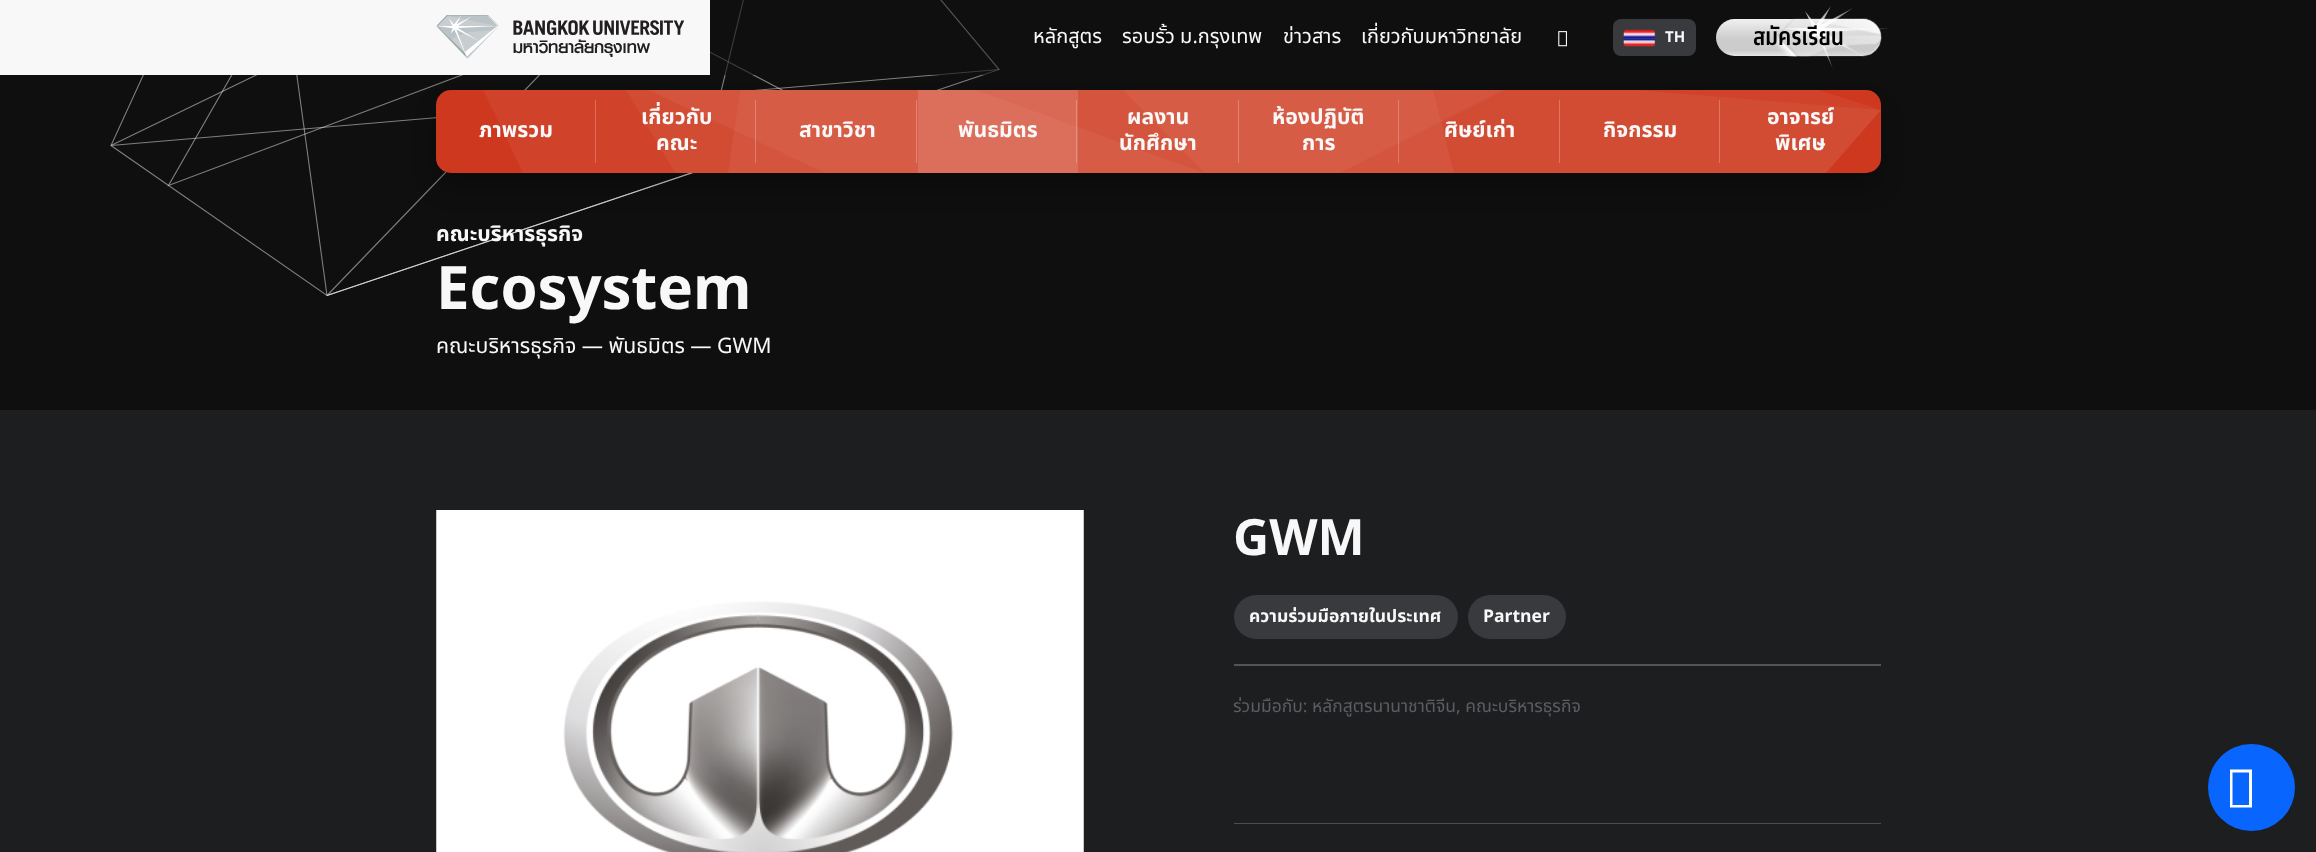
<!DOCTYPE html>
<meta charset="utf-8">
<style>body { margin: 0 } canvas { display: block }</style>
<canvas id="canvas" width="2316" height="852"></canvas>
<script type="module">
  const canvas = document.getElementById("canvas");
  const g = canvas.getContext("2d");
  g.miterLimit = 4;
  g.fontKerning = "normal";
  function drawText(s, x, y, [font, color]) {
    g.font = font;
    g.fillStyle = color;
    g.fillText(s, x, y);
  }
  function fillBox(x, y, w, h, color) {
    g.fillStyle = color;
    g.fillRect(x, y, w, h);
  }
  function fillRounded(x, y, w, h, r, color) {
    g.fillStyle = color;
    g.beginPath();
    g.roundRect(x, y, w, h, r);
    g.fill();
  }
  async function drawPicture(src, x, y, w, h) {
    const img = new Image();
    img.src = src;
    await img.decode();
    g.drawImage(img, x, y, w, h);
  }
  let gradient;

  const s1 = ["20px Noto Sans Thai", "#F8F8F8"];
  const s2 = ["bold 15px Noto Sans Thai", "#F8F8F8"];
  const s3 = ["bold 21.25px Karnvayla", "#000000"];
  const s4 = ["bold 21.25px Noto Sans Thai", "#F8F8F8"];
  const s5 = ["bold 60px Noto Sans Thai", "#F8F8F8"];
  const s6 = ["21.25px Noto Sans Thai", "#F8F8F8"];
  const s7 = ["bold 50px Noto Sans Thai", "#F8F8F8"];
  const s8 = ["bold 17.5px Noto Sans Thai", "#F8F8F8"];
  const s9 = ["17.5px Noto Sans Thai", "#5A5E63"];

  fillBox(0, 0, 2316, 852, "#1D1E20");
  fillBox(0, 0, 2316, 410, "#0F0F10");
  g.beginPath();
  g.moveTo(999, 69.5);
  g.lineTo(327, 295.5);
  g.lineTo(111, 145.5);
  g.lineTo(261.5, -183);
  g.lineTo(788, -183);
  g.closePath();
  g.strokeStyle = "#7F7F7F";
  g.lineWidth = 1.1;
  g.stroke();
  g.beginPath();
  g.moveTo(999, 69.5);
  g.lineTo(111, 145.5);
  g.lineTo(788, -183);
  g.closePath();
  g.strokeStyle = "rgba(248, 248, 248, 0.48)";
  g.stroke();
  g.beginPath();
  g.moveTo(327, 295.5);
  g.lineTo(261.5, -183);
  g.lineTo(843, 122);
  g.closePath();
  g.stroke();
  g.beginPath();
  g.moveTo(702, 169.5);
  g.lineTo(788, -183);
  g.lineTo(327, 295.5);
  g.closePath();
  g.stroke();
  g.beginPath();
  g.moveTo(873.5, -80);
  g.lineTo(168.5, 185.5);
  g.lineTo(379.5, -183);
  g.closePath();
  g.stroke();
  g.fillStyle = "rgba(0, 0, 0, 0.24)";
  g.filter = "blur(10.5px)";
  g.beginPath();
  g.roundRect(436, 106, 1445, 83, 15);
  g.fill();
  g.filter = "none";
  fillBox(710, 0, 290, 75, "rgba(15, 15, 16, 0.6)");
  fillBox(0, 0, 710, 75, "#F8F8F8");
  await drawPicture("pic1.png", 436, 15, 248, 44);
  drawText("หลักสูตร", 1033, 43, s1);
  drawText("รอบรั้ว ม.กรุงเทพ", 1122, 43, s1);
  drawText("ข่าวสาร", 1283, 43, s1);
  drawText("เกี่ยวกับมหาวิทยาลัย", 1361, 43, s1);
  await drawPicture("pic2.png", 1558, 31, 9, 16);
  fillRounded(1613, 19, 83, 37, 8, "#383A3D");
  await drawPicture("pic3.png", 1623, 29, 33, 18);
  drawText("TH", 1665, 42, s2);
  gradient = g.createLinearGradient(1716, 56, 1716, -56);
  gradient.addColorStop(0, "#E6E6E6");
  gradient.addColorStop(0.05, "#CCCCCC");
  gradient.addColorStop(0.15, "#CCCCCC");
  gradient.addColorStop(0.4, "#FFFFFF");
  gradient.addColorStop(0.9, "#FFFFFF");
  g.fillStyle = gradient;
  g.beginPath();
  g.roundRect(1716, 19, 165, 37, 18.5);
  g.fill();
  await drawPicture("pic4.png", 1774, 18, 108, 39);
  gradient = g.createRadialGradient(1819, 46.5, 0, 1819, 46.5, 72);
  gradient.addColorStop(0, "#FFFFFF");
  gradient.addColorStop(1, "rgba(255, 255, 255, 0)");
  g.fillStyle = gradient;
  g.beginPath();
  g.moveTo(1868, 59);
  g.lineTo(1821, 35);
  g.lineTo(1833, 69);
  g.lineTo(1817, 35);
  g.lineTo(1809, 44);
  g.lineTo(1814, 32);
  g.lineTo(1780, 28);
  g.lineTo(1813, 28);
  g.lineTo(1805, 11);
  g.lineTo(1816, 25);
  g.lineTo(1831, 6);
  g.lineTo(1821, 25);
  g.lineTo(1853, 8);
  g.lineTo(1824, 28);
  g.lineTo(1908, 28);
  g.lineTo(1824, 32);
  g.closePath();
  g.save();
  g.clip();
  g.scale(1, 48 / 72);
  g.fillRect(0, 0, 2316, 1278);
  g.restore();
  drawText("สมัครเรียน", 1753, 45, s3);
  fillRounded(436, 90, 1445, 83, 15, "#CE381E");
  g.fillStyle = "#D04229";
  g.beginPath();
  g.moveTo(1881, 110);
  g.lineTo(1826, 173);
  g.lineTo(523, 173);
  g.lineTo(483, 90);
  g.lineTo(1819, 90);
  g.closePath();
  g.fill();
  g.fillStyle = "rgba(255, 255, 255, 0.05)";
  g.beginPath();
  g.moveTo(1881, 110);
  g.lineTo(1826, 173);
  g.lineTo(825, 173);
  g.lineTo(648, 90);
  g.lineTo(1638, 90);
  g.closePath();
  g.fill();
  g.beginPath();
  g.moveTo(1504, 90);
  g.lineTo(740, 90);
  g.lineTo(728, 173);
  g.lineTo(1340, 173);
  g.closePath();
  g.fill();
  g.beginPath();
  g.moveTo(1205, 173);
  g.lineTo(1123, 90);
  g.lineTo(1433, 90);
  g.lineTo(1454, 173);
  g.closePath();
  g.fill();
  g.beginPath();
  g.moveTo(675, 173);
  g.lineTo(1204, 173);
  g.lineTo(976, 90);
  g.lineTo(626, 90);
  g.closePath();
  g.fill();
  drawText("ภาพรวม", 479, 137, s4);
  fillBox(595, 100, 1, 63, "#DB6F5C");
  drawText("เกี่ยวกับ", 641, 124, s4);
  drawText("คณะ", 656, 150, s4);
  fillBox(755, 100, 1, 63, "rgba(255, 255, 255, 0.24)");
  drawText("สาขาวิชา", 799, 137, s4);
  fillBox(916, 100, 1, 63, "#E08474");
  fillBox(918, 90, 160, 83, "rgba(255, 255, 255, 0.12)");
  drawText("พันธมิตร", 958, 137, s4);
  fillBox(1076, 100, 1, 63, "rgba(255, 255, 255, 0.24)");
  drawText("ผลงาน", 1127, 124, s4);
  drawText("นักศึกษา", 1119, 150, s4);
  fillBox(1238, 100, 1, 63, "#E08474");
  drawText("ห้องปฏิบัติ", 1272, 124, s4);
  drawText("การ", 1302, 150, s4);
  fillBox(1398, 100, 1, 63, "rgba(255, 255, 255, 0.24)");
  drawText("ศิษย์เก่า", 1444, 137, s4);
  fillBox(1559, 100, 1, 63, "#DD7764");
  drawText("กิจกรรม", 1603, 137, s4);
  fillBox(1719, 100, 1, 63, "#DD7764");
  drawText("อาจารย์", 1767, 124, s4);
  drawText("พิเศษ", 1775, 150, s4);
  drawText("คณะบริหารธุรกิจ", 436, 241, s4);
  drawText("Ecosystem", 436, 309, s5);
  drawText("คณะบริหารธุรกิจ — พันธมิตร — GWM", 436, 353, s6);
  await drawPicture("pic5.png", 436, 510, 648, 342);
  drawText("GWM", 1233, 555, s7);
  fillRounded(1234, 595, 224, 44, 22, "#383A3D");
  drawText("ความร่วมมือภายในประเทศ", 1249, 622, s8);
  fillRounded(1468, 595, 98, 44, 22, "#383A3D");
  drawText("Partner", 1483, 622, s8);
  fillBox(1234, 664, 647, 2, "#535456");
  drawText("ร่วมมือกับ: หลักสูตรนานาชาติจีน, คณะบริหารธุรกิจ", 1233, 712, s9);
  fillBox(1234, 823, 647, 1, "#4A4D51");
  g.fillStyle = "#0866FF";
  g.beginPath();
  g.arc(2251.5, 787.5, 43.5, 0, Math.PI * 2);
  g.fill();
  g.fillStyle = "#FFFFFF";
  g.beginPath();
  g.moveTo(2230, 807.5);
  g.lineTo(2230, 769.5);
  g.lineTo(2252, 769.5);
  g.lineTo(2252, 807.5);
  g.closePath();
  g.moveTo(2232.5, 805);
  g.lineTo(2249, 805);
  g.lineTo(2249, 772.5);
  g.lineTo(2232.5, 772.5);
  g.closePath();
  g.fill();
</script>
